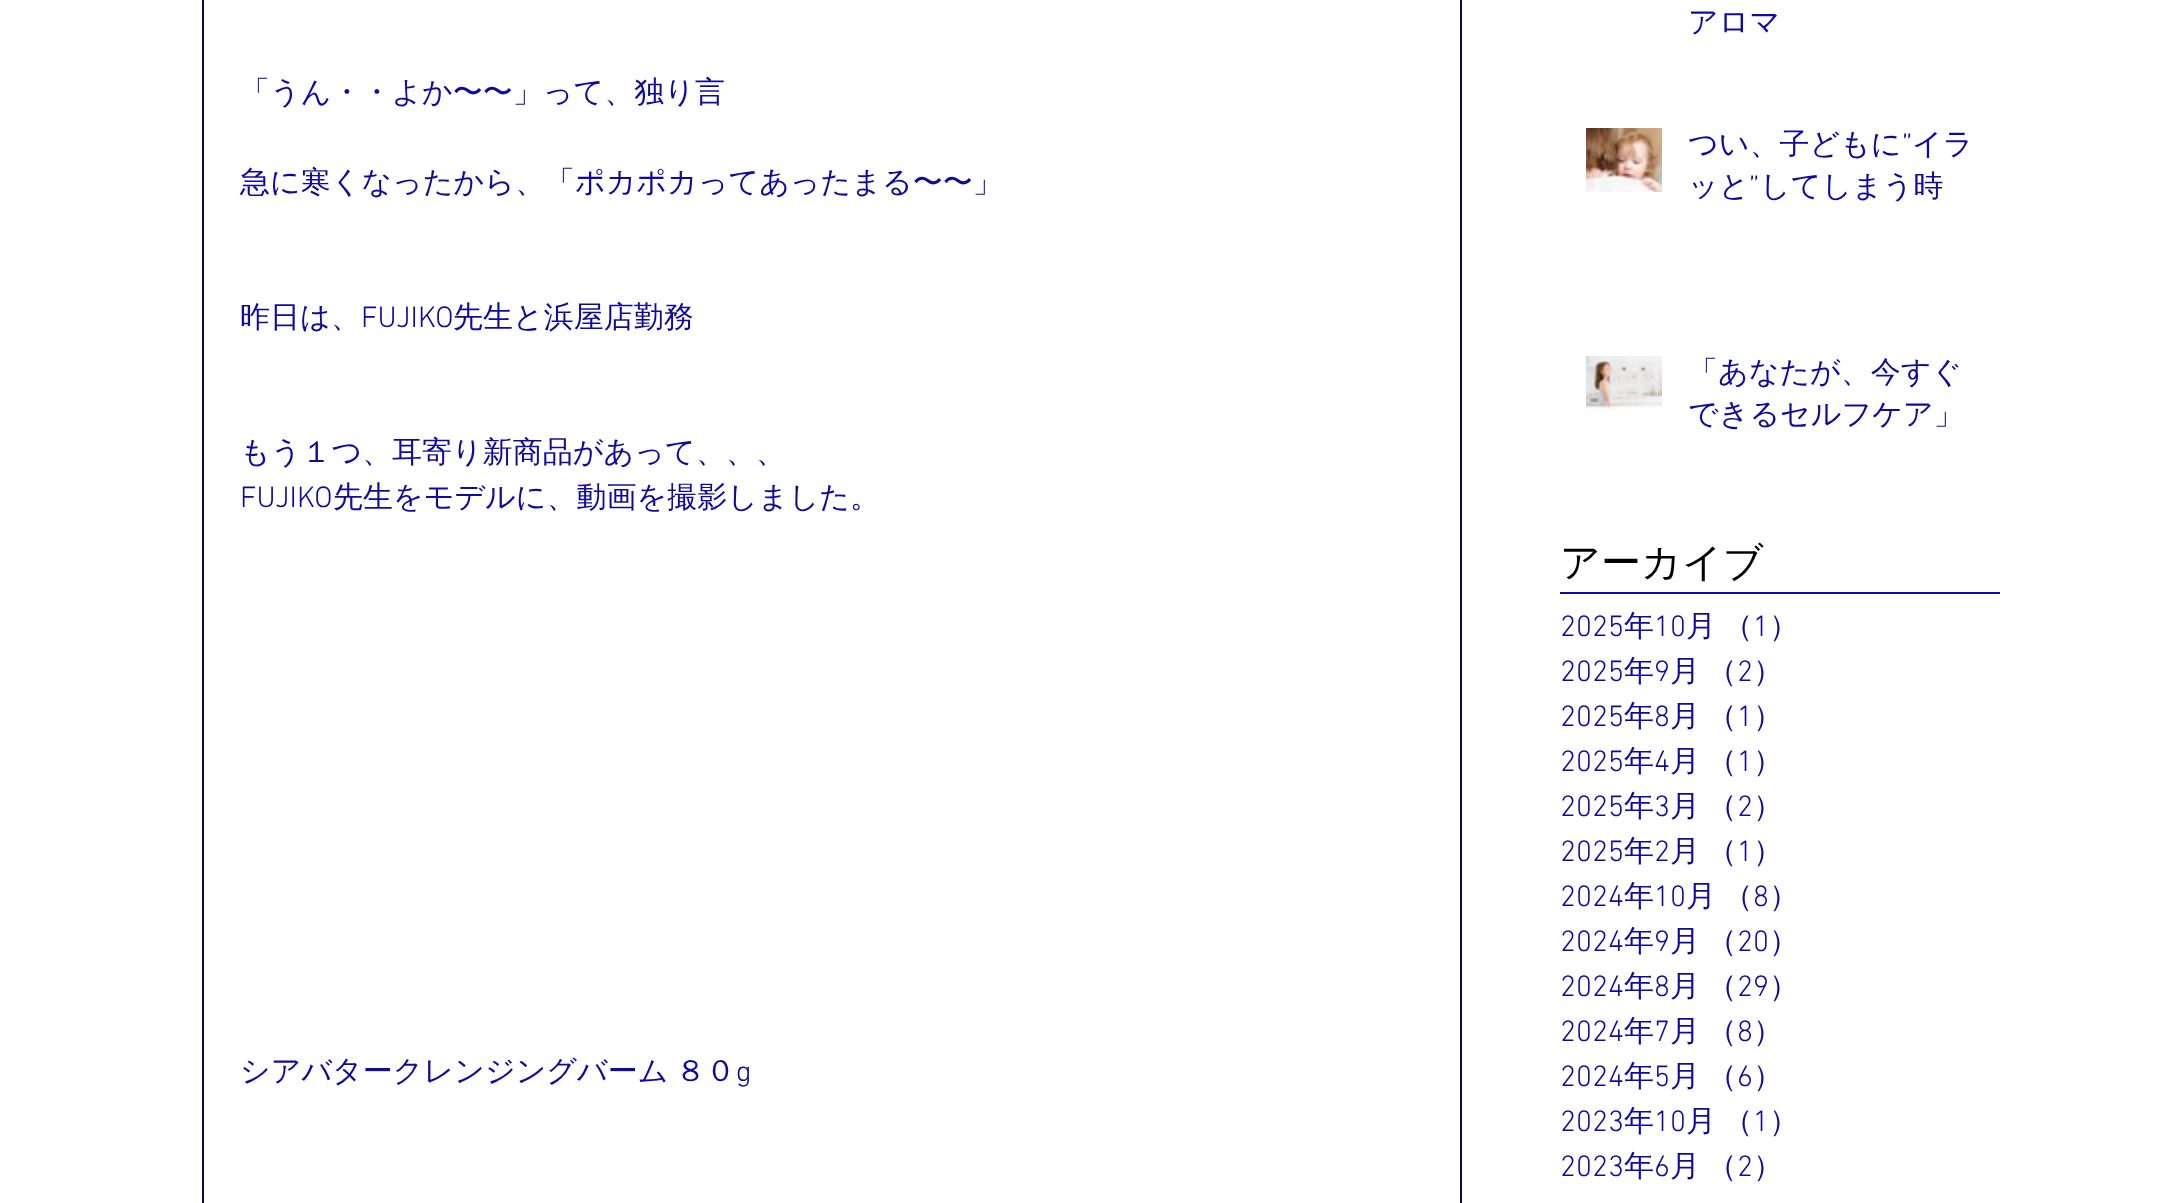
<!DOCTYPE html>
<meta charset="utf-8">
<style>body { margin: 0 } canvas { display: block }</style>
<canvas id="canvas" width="2164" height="1203"></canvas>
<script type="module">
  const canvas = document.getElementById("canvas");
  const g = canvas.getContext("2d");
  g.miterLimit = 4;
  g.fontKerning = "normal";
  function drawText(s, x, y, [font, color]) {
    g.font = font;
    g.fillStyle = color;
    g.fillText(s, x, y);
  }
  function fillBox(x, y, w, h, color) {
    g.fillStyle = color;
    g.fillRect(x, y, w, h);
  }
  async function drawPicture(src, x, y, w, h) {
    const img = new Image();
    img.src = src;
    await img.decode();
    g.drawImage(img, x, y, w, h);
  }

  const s1 = ["500 30px WenQuanYi Zen Hei", "#0F09A1"];
  const s2 = ["300 30px 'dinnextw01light'", "#0F09A1"];
  const s3 = ["500 40px WenQuanYi Zen Hei", "#000000"];

  fillBox(0, 0, 2164, 1203, "#FFFFFF");
  g.strokeStyle = "#080451";
  g.lineWidth = 2;
  g.strokeRect(203, -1, 1258, 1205);
  drawText("「うん・・よか〜〜」って、独り言", 240, 102, s1);
  drawText("急に寒くなったから、「ポカポカってあったまる〜〜」", 240, 192, s1);
  drawText("昨日は、", 240, 327, s1);
  drawText("FUJIKO", 361, 327, s2);
  drawText("先生と浜屋店勤務", 453, 327, s1);
  drawText("もう１つ、耳寄り新商品があって、、、", 240, 462, s1);
  drawText("FUJIKO", 240, 507, s2);
  drawText("先生をモデルに、動画を撮影しました。", 333, 507, s1);
  g.wordSpacing = "-2px";
  drawText("シアバタークレンジングバーム ８０", 240, 1081, s1);
  g.wordSpacing = "0px";
  drawText("g", 736, 1081, s2);
  drawText("アーカイブ", 1560, 576, s3);
  drawText("アロマ", 1688, 32, s1);
  await drawPicture("pic1.png", 1586, 128, 76, 64);
  drawText("つい、子どもに", 1688, 154, s1);
  drawText("”", 1902, 154, s2);
  drawText("イラ", 1912, 154, s1);
  drawText("ッと", 1688, 196, s1);
  drawText("”", 1749, 196, s2);
  drawText("してしまう時", 1760, 196, s1);
  await drawPicture("pic2.png", 1586, 356, 76, 60);
  drawText("「あなたが、今すぐ", 1688, 382, s1);
  drawText("できるセルフケア」", 1688, 424, s1);
  fillBox(1560, 592, 440, 2, "#0F09A1");
  drawText("2025", 1560, 636, s2);
  drawText("年", 1624, 636, s1);
  drawText("10", 1654, 636, s2);
  drawText("月", 1686, 636, s1);
  drawText("（", 1723, 636, s1);
  drawText("1", 1753, 636, s2);
  drawText("）", 1769, 636, s1);
  drawText("2025", 1560, 681, s2);
  drawText("年", 1624, 681, s1);
  drawText("9", 1654, 681, s2);
  drawText("月", 1670, 681, s1);
  drawText("（", 1707, 681, s1);
  drawText("2", 1737, 681, s2);
  drawText("）", 1753, 681, s1);
  drawText("2025", 1560, 726, s2);
  drawText("年", 1624, 726, s1);
  drawText("8", 1654, 726, s2);
  drawText("月", 1670, 726, s1);
  drawText("（", 1707, 726, s1);
  drawText("1", 1737, 726, s2);
  drawText("）", 1753, 726, s1);
  drawText("2025", 1560, 771, s2);
  drawText("年", 1624, 771, s1);
  drawText("4", 1654, 771, s2);
  drawText("月", 1670, 771, s1);
  drawText("（", 1707, 771, s1);
  drawText("1", 1737, 771, s2);
  drawText("）", 1753, 771, s1);
  drawText("2025", 1560, 816, s2);
  drawText("年", 1624, 816, s1);
  drawText("3", 1654, 816, s2);
  drawText("月", 1670, 816, s1);
  drawText("（", 1707, 816, s1);
  drawText("2", 1737, 816, s2);
  drawText("）", 1753, 816, s1);
  drawText("2025", 1560, 861, s2);
  drawText("年", 1624, 861, s1);
  drawText("2", 1654, 861, s2);
  drawText("月", 1670, 861, s1);
  drawText("（", 1707, 861, s1);
  drawText("1", 1737, 861, s2);
  drawText("）", 1753, 861, s1);
  drawText("2024", 1560, 906, s2);
  drawText("年", 1624, 906, s1);
  drawText("10", 1654, 906, s2);
  drawText("月", 1686, 906, s1);
  drawText("（", 1723, 906, s1);
  drawText("8", 1753, 906, s2);
  drawText("）", 1769, 906, s1);
  drawText("2024", 1560, 951, s2);
  drawText("年", 1624, 951, s1);
  drawText("9", 1654, 951, s2);
  drawText("月", 1670, 951, s1);
  drawText("（", 1707, 951, s1);
  drawText("20", 1737, 951, s2);
  drawText("）", 1769, 951, s1);
  drawText("2024", 1560, 996, s2);
  drawText("年", 1624, 996, s1);
  drawText("8", 1654, 996, s2);
  drawText("月", 1670, 996, s1);
  drawText("（", 1707, 996, s1);
  drawText("29", 1737, 996, s2);
  drawText("）", 1769, 996, s1);
  drawText("2024", 1560, 1041, s2);
  drawText("年", 1624, 1041, s1);
  drawText("7", 1654, 1041, s2);
  drawText("月", 1670, 1041, s1);
  drawText("（", 1707, 1041, s1);
  drawText("8", 1737, 1041, s2);
  drawText("）", 1753, 1041, s1);
  drawText("2024", 1560, 1086, s2);
  drawText("年", 1624, 1086, s1);
  drawText("5", 1654, 1086, s2);
  drawText("月", 1670, 1086, s1);
  drawText("（", 1707, 1086, s1);
  drawText("6", 1737, 1086, s2);
  drawText("）", 1753, 1086, s1);
  drawText("2023", 1560, 1131, s2);
  drawText("年", 1624, 1131, s1);
  drawText("10", 1654, 1131, s2);
  drawText("月", 1686, 1131, s1);
  drawText("（", 1723, 1131, s1);
  drawText("1", 1753, 1131, s2);
  drawText("）", 1769, 1131, s1);
  drawText("2023", 1560, 1176, s2);
  drawText("年", 1624, 1176, s1);
  drawText("6", 1654, 1176, s2);
  drawText("月", 1670, 1176, s1);
  drawText("（", 1707, 1176, s1);
  drawText("2", 1737, 1176, s2);
  drawText("）", 1753, 1176, s1);
</script>
